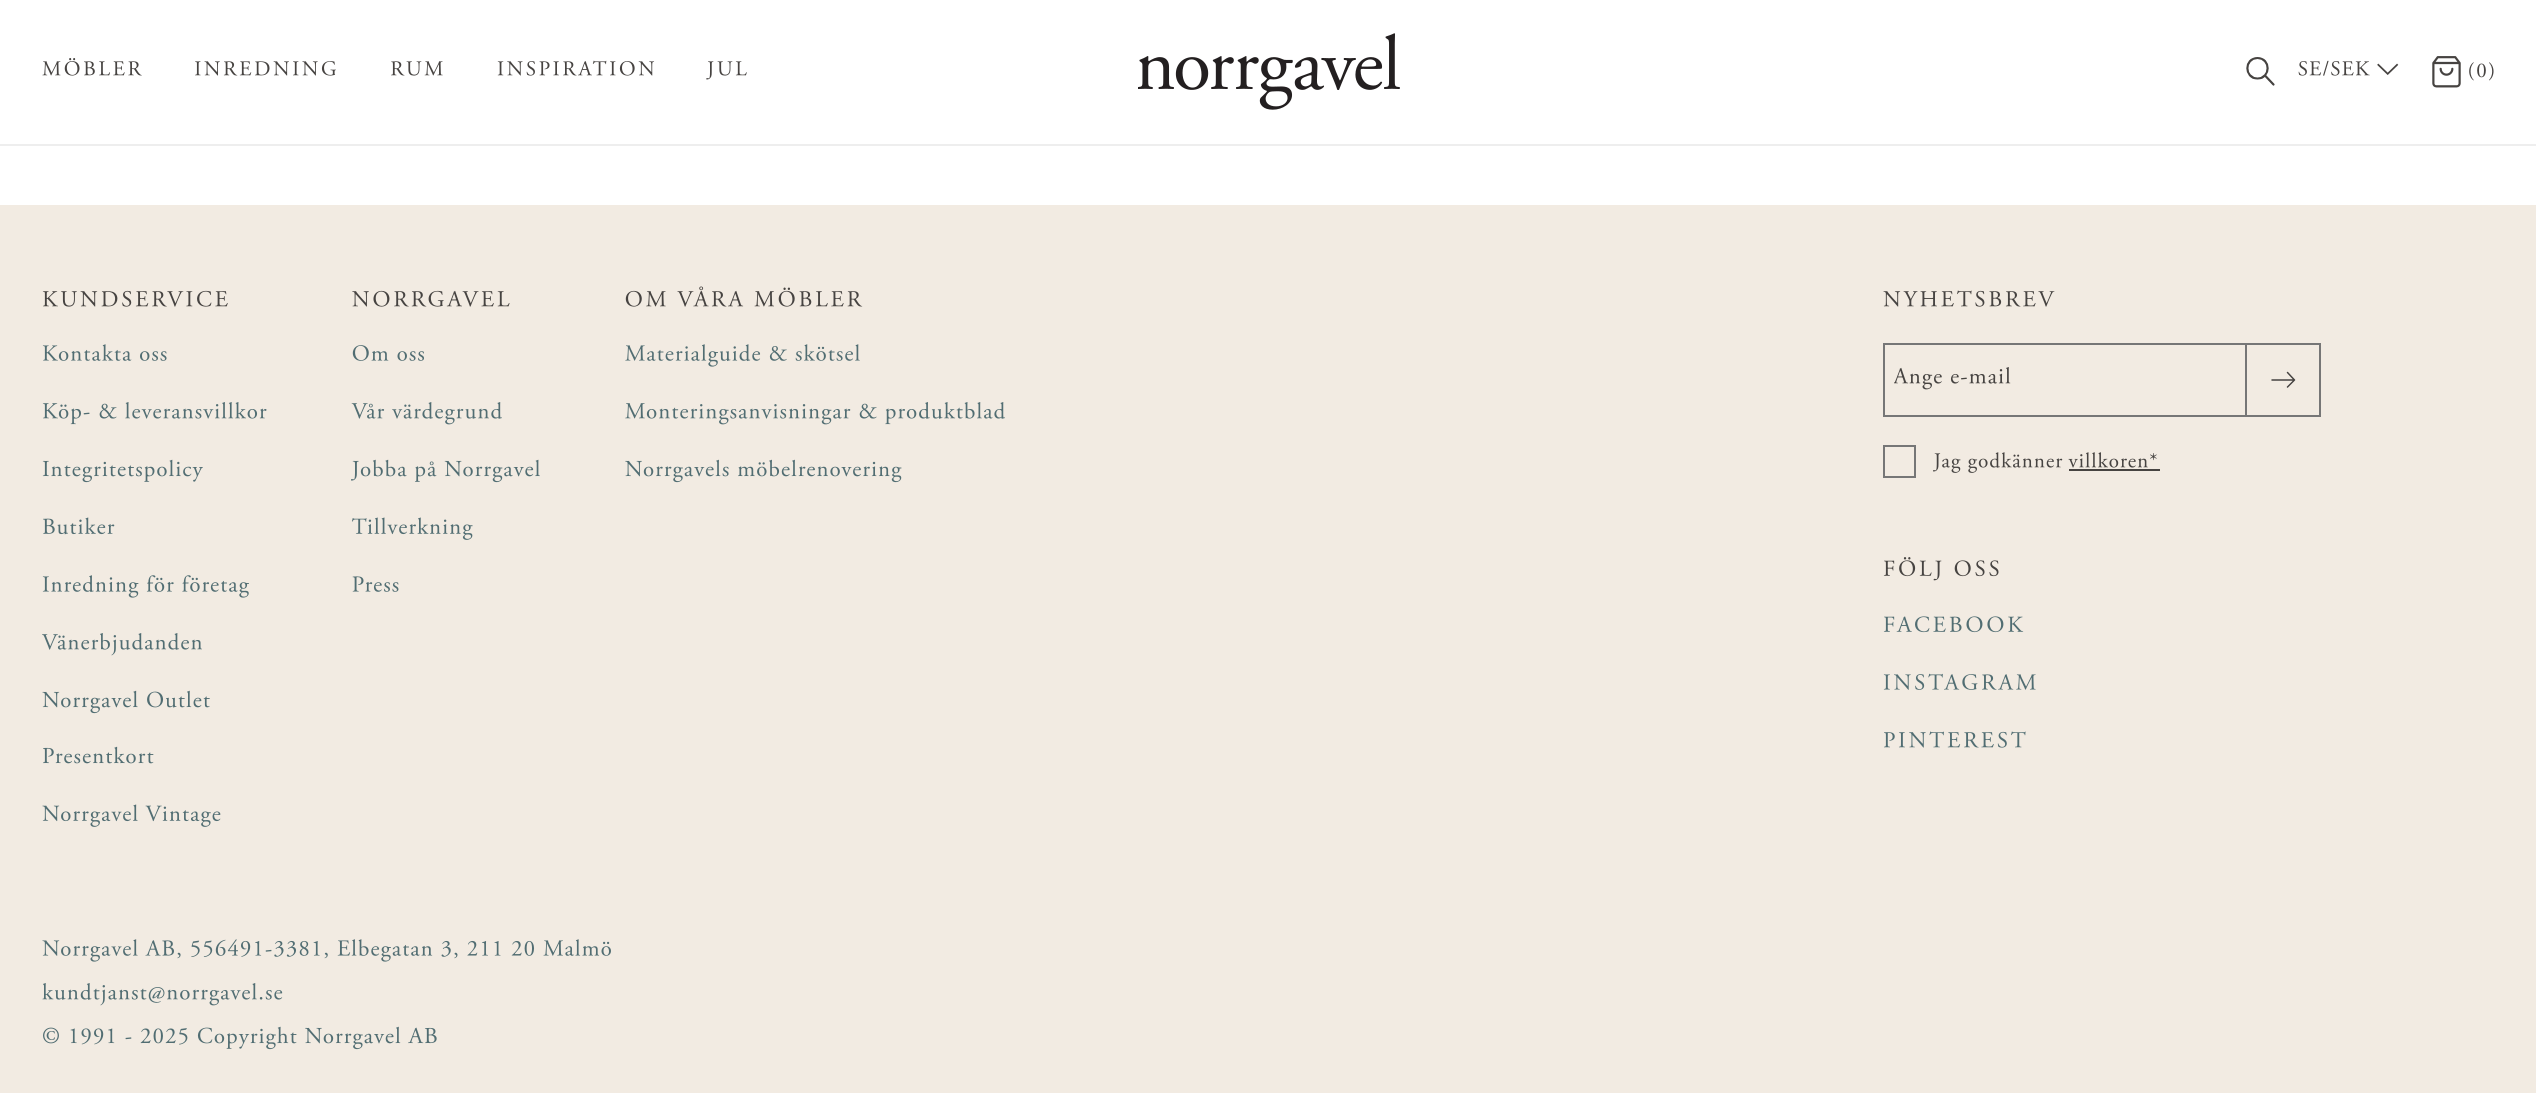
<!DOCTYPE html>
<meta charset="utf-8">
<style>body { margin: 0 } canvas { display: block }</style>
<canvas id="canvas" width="2536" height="1093"></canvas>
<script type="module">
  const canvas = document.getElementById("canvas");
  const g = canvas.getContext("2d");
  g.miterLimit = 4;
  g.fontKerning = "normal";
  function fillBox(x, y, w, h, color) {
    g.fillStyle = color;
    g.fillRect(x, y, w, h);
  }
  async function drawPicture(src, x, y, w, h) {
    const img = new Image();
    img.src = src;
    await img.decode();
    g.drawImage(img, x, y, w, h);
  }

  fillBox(0, 0, 2536, 1093, "#FFFFFF");
  fillBox(0, 144, 2536, 2, "#EEEEEE");
  await drawPicture("pic1.png", 42, 58, 100, 18);
  await drawPicture("pic2.png", 195, 61, 141, 15);
  await drawPicture("pic3.png", 391, 61, 52, 15);
  await drawPicture("pic4.png", 497, 60, 158, 16);
  await drawPicture("pic5.png", 706, 61, 41, 19);
  await drawPicture("pic6.png", 1138, 33, 262, 77);
  g.beginPath();
  g.moveTo(2257.5, 78.5);
  g.bezierCurveTo(2271, 78.5, 2271, 58, 2257.5, 58);
  g.bezierCurveTo(2244, 58, 2244, 78.5, 2257.5, 78.5);
  g.closePath();
  g.moveTo(2273.5, 84.5);
  g.lineTo(2265, 75.5);
  g.strokeStyle = "#464341";
  g.lineWidth = 2.2;
  g.lineCap = "round";
  g.lineJoin = "round";
  g.stroke();
  await drawPicture("pic7.png", 2298, 60, 72, 16);
  await drawPicture("pic8.png", 2377, 63, 22, 12);
  await drawPicture("pic9.png", 2432, 56, 29, 32);
  await drawPicture("pic10.png", 2469, 62, 5, 19);
  await drawPicture("pic11.png", 2477, 63, 9, 15);
  await drawPicture("pic12.png", 2489, 62, 5, 19);
  fillBox(0, 205, 2536, 888, "#F2EBE2");
  await drawPicture("pic13.png", 42, 290, 186, 17);
  await drawPicture("pic14.png", 42, 344, 125, 17);
  await drawPicture("pic15.png", 42, 402, 225, 23);
  await drawPicture("pic16.png", 42, 459, 161, 24);
  await drawPicture("pic17.png", 43, 517, 72, 18);
  await drawPicture("pic18.png", 42, 575, 207, 23);
  await drawPicture("pic19.png", 42, 633, 160, 23);
  await drawPicture("pic20.png", 42, 690, 168, 24);
  await drawPicture("pic21.png", 43, 746, 111, 18);
  await drawPicture("pic22.png", 42, 804, 179, 23);
  await drawPicture("pic23.png", 352, 290, 158, 17);
  await drawPicture("pic24.png", 352, 345, 72, 16);
  await drawPicture("pic25.png", 351, 402, 151, 23);
  await drawPicture("pic26.png", 351, 459, 189, 24);
  await drawPicture("pic27.png", 352, 517, 121, 23);
  await drawPicture("pic28.png", 352, 576, 47, 16);
  await drawPicture("pic29.png", 625, 286, 238, 21);
  await drawPicture("pic30.png", 625, 344, 235, 23);
  await drawPicture("pic31.png", 625, 402, 380, 23);
  await drawPicture("pic32.png", 625, 459, 277, 24);
  await drawPicture("pic33.png", 1883, 290, 172, 17);
  g.strokeStyle = "#767676";
  g.lineWidth = 2;
  g.lineJoin = "miter";
  g.strokeRect(1884, 344, 436, 72);
  await drawPicture("pic34.png", 1894, 367, 117, 23);
  fillBox(2245, 343, 2, 74, "#767676");
  g.beginPath();
  g.moveTo(2272, 380);
  g.lineTo(2294.5, 380);
  g.moveTo(2287.5, 372.5);
  g.lineTo(2294.5, 380);
  g.moveTo(2287.5, 387);
  g.lineTo(2294.5, 380);
  g.strokeStyle = "#464341";
  g.lineWidth = 1.5;
  g.stroke();
  g.strokeStyle = "#767676";
  g.lineWidth = 2;
  g.strokeRect(1884, 446, 31, 31);
  await drawPicture("pic35.png", 1933, 452, 130, 21);
  await drawPicture("pic36.png", 2068, 452, 89, 16);
  fillBox(2069, 469, 91, 2, "#464341");
  await drawPicture("pic37.png", 1883, 557, 116, 24);
  await drawPicture("pic38.png", 1883, 616, 141, 17);
  await drawPicture("pic39.png", 1883, 673, 153, 17);
  await drawPicture("pic40.png", 1884, 731, 142, 17);
  await drawPicture("pic41.png", 42, 939, 569, 23);
  await drawPicture("pic42.png", 42, 983, 241, 23);
  await drawPicture("pic43.png", 43, 1026, 394, 24);
</script>
